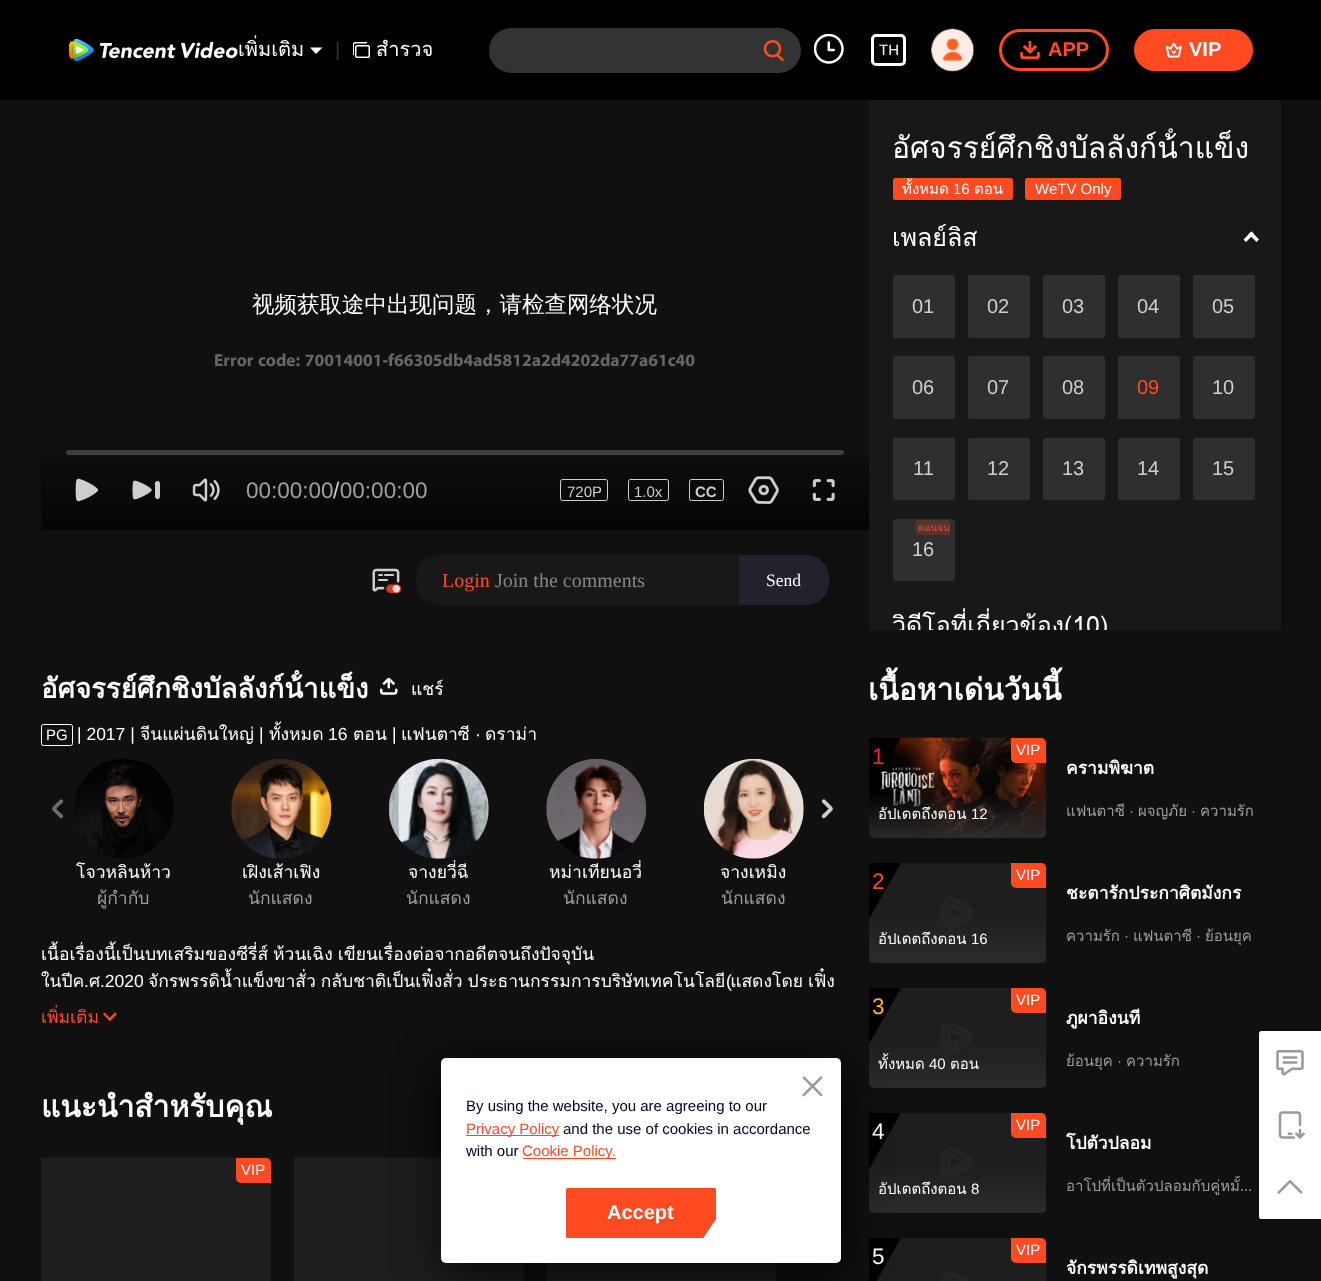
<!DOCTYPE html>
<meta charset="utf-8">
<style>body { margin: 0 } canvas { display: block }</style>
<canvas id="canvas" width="1321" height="1281"></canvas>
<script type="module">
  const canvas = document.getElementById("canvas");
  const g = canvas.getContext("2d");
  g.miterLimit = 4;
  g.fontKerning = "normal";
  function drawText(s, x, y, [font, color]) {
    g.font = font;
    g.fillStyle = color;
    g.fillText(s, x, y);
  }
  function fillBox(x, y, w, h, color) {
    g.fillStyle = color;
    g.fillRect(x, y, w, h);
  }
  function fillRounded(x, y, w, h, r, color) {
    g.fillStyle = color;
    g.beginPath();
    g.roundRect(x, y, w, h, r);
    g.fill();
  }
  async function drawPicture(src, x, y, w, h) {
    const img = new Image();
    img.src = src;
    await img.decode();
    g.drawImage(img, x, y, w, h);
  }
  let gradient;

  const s1 = ["20px Loma", "#FFFFFF"];
  const s2 = ["20px Liberation Sans", "#333333"];
  const s3 = ["15px Liberation Sans", "#FFFFFF"];
  const s4 = ["bold 20px Liberation Sans", "#FF4A22"];
  const s5 = ["bold 20px Liberation Sans", "#FFFFFF"];
  const s6 = ["500 22.5px WenQuanYi Zen Hei", "#FFFFFF"];
  const s7 = ["bold 17.5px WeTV", "#666666"];
  const s8 = ["22.5px Liberation Sans", "#9D9D9D"];
  const s9 = ["22.5px Liberation Sans", "#CECECE"];
  const s10 = ["15px Liberation Sans", "#CECECE"];
  const s11 = ["bold 15px Liberation Sans", "#CECECE"];
  const s12 = ["20px Liberation Serif", "#FF4A22"];
  const s13 = ["20px Liberation Serif", "#85868A"];
  const s14 = ["17.5px Liberation Serif", "#FFFFFF"];
  const s15 = ["30px Loma", "#FFFFFF"];
  const s16 = ["15px Loma", "#FFFFFF"];
  const s17 = ["25px Loma", "#FFFFFF"];
  const s18 = ["20px Liberation Sans", "#CECECE"];
  const s19 = ["20px Liberation Sans", "#FF4A22"];
  const s20 = ["10px Loma", "#FF4A22"];
  const s21 = ["bold 27.5px Loma", "#FFFFFF"];
  const s22 = ["17.5px Loma", "#FFFFFF"];
  const s23 = ["17.5px Liberation Sans", "#FFFFFF"];
  const s24 = ["17.5px Loma", "#9D9D9D"];
  const s25 = ["17.5px Loma", "#FF4A22"];
  const s26 = ["bold 30px Loma", "#FFFFFF"];
  const s27 = ["22.5px Liberation Sans", "#FF2222"];
  const s28 = ["bold 17.5px Loma", "#FFFFFF"];
  const s29 = ["15px Loma", "#9D9D9D"];
  const s30 = ["15px Liberation Sans", "#9D9D9D"];
  const s31 = ["22.5px Liberation Sans", "#FF4A22"];
  const s32 = ["22.5px Liberation Sans", "#FFAD22"];
  const s33 = ["22.5px Liberation Sans", "#FFFFFF"];
  const s34 = ["15px Liberation Sans", "#000028"];
  const s35 = ["15px Liberation Sans", "#FF4A22"];

  fillBox(0, 0, 1321, 1281, "#101010");
  fillBox(0, 0, 1321, 100, "#000000");
  await drawPicture("pic1.png", 69, 38, 169, 24);
  drawText("เพิ่มเติม", 238, 56, s1);
  g.beginPath();
  g.moveTo(310, 47.5);
  g.lineTo(322.5, 47.5);
  g.lineTo(316, 54);
  g.closePath();
  g.fill();
  drawText("|", 335, 56, s2);
  await drawPicture("pic2.png", 353, 42, 17, 16);
  drawText("สำรวจ", 376, 56, s1);
  fillRounded(489, 28, 312, 45, 22.5, "#333333");
  await drawPicture("pic3.png", 763, 40, 21, 22);
  await drawPicture("pic4.png", 814, 34, 30, 30);
  g.beginPath();
  g.roundRect(872.5, 35.5, 32, 29, 3.5);
  g.strokeStyle = "#FFFFFF";
  g.lineWidth = 3;
  g.stroke();
  drawText("TH", 879, 55, s3);
  await drawPicture("pic5.png", 931, 28, 44, 44);
  g.beginPath();
  g.roundRect(1000.5, 30.5, 107, 39, 19.5);
  g.strokeStyle = "#FF4A22";
  g.stroke();
  await drawPicture("pic6.png", 1020, 40, 20, 20);
  drawText("APP", 1048, 56, s4);
  fillRounded(1134, 29, 119, 42, 21, "#FF4A22");
  await drawPicture("pic7.png", 1165, 42, 17, 16);
  drawText("VIP", 1189, 56, s5);
  drawText("视频获取途中出现问题，请检查网络状况", 252, 312, s6);
  drawText("Error code: 70014001-f66305db4ad5812a2d4202da77a61c40", 214, 366, s7);
  gradient = g.createLinearGradient(455, 425, 455, 530);
  gradient.addColorStop(0, "#111111");
  gradient.addColorStop(1, "#050505");
  g.fillStyle = gradient;
  g.fillRect(41, 456, 828, 74);
  fillRounded(66, 450, 778, 5, 2.5, "#3E3E3E");
  await drawPicture("pic8.png", 75, 478, 24, 24);
  await drawPicture("pic9.png", 132, 480, 28, 20);
  await drawPicture("pic10.png", 192, 478, 28, 24);
  drawText("00:00:00 00:00:00", 246, 498, s8);
  drawText("/", 333, 498, s9);
  g.beginPath();
  g.roundRect(560.5, 479.5, 47, 21, 2);
  g.strokeStyle = "rgba(255, 255, 255, 0.8)";
  g.lineWidth = 1;
  g.stroke();
  drawText("720P", 567, 497, s10);
  g.beginPath();
  g.roundRect(628.5, 479.5, 40, 21, 2);
  g.stroke();
  drawText("1.0x", 634, 497, s10);
  g.beginPath();
  g.roundRect(689.5, 479.5, 34, 21, 2);
  g.stroke();
  drawText("CC", 695, 497, s11);
  await drawPicture("pic11.png", 748, 476, 31, 28);
  await drawPicture("pic12.png", 812, 479, 23, 22);
  await drawPicture("pic13.png", 372, 568, 30, 26);
  fillRounded(416, 555, 413, 50, 23, "#181818");
  drawText("Login", 442, 587, s12);
  drawText("Join the comments", 495, 587, s13);
  g.fillStyle = "rgba(41, 42, 60, 0.6)";
  g.beginPath();
  g.roundRect(739, 555, 90, 50, [0, 23, 23, 0]);
  g.fill();
  drawText("Send", 766, 586, s14);
  fillBox(869, 100, 412, 530, "#181818");
  g.save();
  g.beginPath();
  g.rect(893, 125, 388, 45);
  g.clip();
  drawText("อัศจรรย์ศึกชิงบัลลังก์น้ําแข็ง", 892, 158, s15);
  g.restore();
  fillRounded(893, 178, 120, 22, 2.5, "#FF4A22");
  drawText("ทั้งหมด", 902, 194, s16);
  drawText("16", 953, 194, s3);
  drawText("ตอน", 974, 194, s16);
  fillRounded(1025, 178, 96, 22, 2.5, "#FF4A22");
  drawText("WeTV Only", 1035, 194, s3);
  drawText("เพลย์ลิส", 892, 246, s17);
  g.beginPath();
  g.moveTo(1246, 242);
  g.lineTo(1243.5, 239.5);
  g.lineTo(1251.5, 231.5);
  g.lineTo(1254, 234);
  g.closePath();
  g.fill();
  g.beginPath();
  g.moveTo(1256.5, 242);
  g.lineTo(1248.5, 234);
  g.lineTo(1251.5, 231.5);
  g.lineTo(1259, 239.5);
  g.closePath();
  g.fill();
  fillRounded(893, 275, 62, 63, 2.5, "#2F2F2F");
  drawText("01", 912, 313, s18);
  fillRounded(968, 275, 62, 63, 2.5, "#2F2F2F");
  drawText("02", 987, 313, s18);
  fillRounded(1043, 275, 62, 63, 2.5, "#2F2F2F");
  drawText("03", 1062, 313, s18);
  fillRounded(1118, 275, 62, 63, 2.5, "#2F2F2F");
  drawText("04", 1137, 313, s18);
  fillRounded(1193, 275, 62, 63, 2.5, "#2F2F2F");
  drawText("05", 1212, 313, s18);
  fillRounded(893, 356, 62, 63, 2.5, "#2F2F2F");
  drawText("06", 912, 394, s18);
  fillRounded(968, 356, 62, 63, 2.5, "#2F2F2F");
  drawText("07", 987, 394, s18);
  fillRounded(1043, 356, 62, 63, 2.5, "#2F2F2F");
  drawText("08", 1062, 394, s18);
  fillRounded(1118, 356, 62, 63, 2.5, "#2F2F2F");
  drawText("09", 1137, 394, s19);
  fillRounded(1193, 356, 62, 63, 2.5, "#2F2F2F");
  drawText("10", 1212, 394, s18);
  fillRounded(893, 438, 62, 62, 2.5, "#2F2F2F");
  drawText("11", 913, 475, s18);
  fillRounded(968, 438, 62, 62, 2.5, "#2F2F2F");
  drawText("12", 987, 475, s18);
  fillRounded(1043, 438, 62, 62, 2.5, "#2F2F2F");
  drawText("13", 1062, 475, s18);
  fillRounded(1118, 438, 62, 62, 2.5, "#2F2F2F");
  drawText("14", 1137, 475, s18);
  fillRounded(1193, 438, 62, 62, 2.5, "#2F2F2F");
  drawText("15", 1212, 475, s18);
  fillRounded(893, 519, 62, 62, 2.5, "#2F2F2F");
  g.fillStyle = "#53362E";
  g.beginPath();
  g.roundRect(916, 520, 34, 15, [0, 2, 0, 2]);
  g.fill();
  drawText("ตอนจบ", 918, 531, s20);
  drawText("16", 912, 556, s18);
  g.save();
  g.beginPath();
  g.rect(893, 606, 388, 24);
  g.clip();
  drawText("วิดีโอที่เกี่ยวข้อง(10)", 892, 634, s17);
  g.restore();
  drawText("อัศจรรย์ศึกชิงบัลลังก์น้ําแข็ง", 41, 698, s21);
  await drawPicture("pic14.png", 380, 678, 18, 17);
  drawText("แชร์", 411, 695, s22);
  g.beginPath();
  g.roundRect(41.5, 724.5, 31, 21, 2);
  g.strokeStyle = "#FFFFFF";
  g.stroke();
  drawText("PG", 46, 740, s3);
  drawText("| 2017 |", 77, 740, s23);
  drawText("จีนแผ่นดินใหญ่", 140, 740, s22);
  drawText("|", 259, 740, s23);
  drawText("ทั้งหมด", 269, 740, s22);
  drawText("16", 328, 740, s23);
  drawText("ตอน", 353, 740, s22);
  drawText("|", 392, 740, s23);
  drawText("แฟนตาซี", 401, 740, s22);
  drawText("·", 475, 740, s23);
  drawText("ดราม่า", 485, 740, s22);
  await drawPicture("pic15.png", 52, 799, 11, 20);
  await drawPicture("pic16.png", 821, 799, 12, 20);
  await drawPicture("pic17.png", 74, 759, 100, 100);
  drawText("โจวหลินห้าว", 76, 878, s22);
  drawText("ผู้กำกับ", 97, 904, s24);
  await drawPicture("pic18.png", 231, 759, 101, 100);
  drawText("เฝิงเส้าเฟิง", 242, 878, s22);
  drawText("นักแสดง", 248, 904, s24);
  await drawPicture("pic19.png", 388, 758, 101, 101);
  drawText("จางยวี่ฉี", 408, 878, s22);
  drawText("นักแสดง", 406, 904, s24);
  await drawPicture("pic20.png", 546, 758, 101, 101);
  drawText("หม่าเทียนอวี่", 549, 878, s22);
  drawText("นักแสดง", 563, 904, s24);
  await drawPicture("pic21.png", 703, 758, 101, 101);
  drawText("จางเหมิง", 720, 878, s22);
  drawText("นักแสดง", 721, 904, s24);
  g.save();
  g.beginPath();
  g.rect(41, 941, 803, 50);
  g.clip();
  g.wordSpacing = "-1px";
  drawText("เนื้อเรื่องนี้เป็นบทเสริมของซีรี่ส์ ห้วนเฉิง เขียนเรื่องต่อจากอดีตจนถึงปัจจุบัน", 41, 960, s22);
  g.restore();
  drawText("ในปีค", 41, 987, s22);
  drawText(".2020", 100, 987, s23);
  g.wordSpacing = "-1px";
  drawText("จักรพรรดิน้ำแข็งขาสั่ว กลับชาติเป็นเฟิ๋งสั่ว ประธานกรรมการบริษัทเทคโนโลยี แสดงโดย เฟิ๋ง", 148, 987, s22);
  g.wordSpacing = "0px";
  drawText(".", 84, 987, s23);
  drawText("ศ", 89, 987, s22);
  drawText("(", 726, 987, s23);
  drawText("เพิ่มเติม", 41, 1023, s25);
  g.beginPath();
  g.moveTo(115, 1012.5);
  g.lineTo(117, 1014);
  g.lineTo(110, 1021);
  g.lineTo(108, 1019.5);
  g.closePath();
  g.fill();
  g.beginPath();
  g.moveTo(104.5, 1012.5);
  g.lineTo(111.5, 1019.5);
  g.lineTo(110, 1021);
  g.lineTo(103, 1014);
  g.closePath();
  g.fill();
  drawText("แนะนำสำหรับคุณ", 41, 1117, s26);
  await drawPicture("pic22.png", 41, 1157, 230, 124);
  g.fillStyle = "#FF4A22";
  g.beginPath();
  g.roundRect(236, 1158, 35, 25, [0, 5, 0, 5]);
  g.fill();
  drawText("VIP", 241, 1175, s3);
  await drawPicture("pic23.png", 294, 1157, 230, 124);
  await drawPicture("pic24.png", 546, 1263, 230, 18);
  drawText("เนื้อหาเด่นวันนี้", 868, 700, s26);
  await drawPicture("pic25.png", 869, 737, 178, 101);
  g.fillStyle = "#FF4A22";
  g.beginPath();
  g.roundRect(1011, 738, 35, 25, [0, 5, 0, 5]);
  g.fill();
  drawText("VIP", 1016, 755, s3);
  g.fillStyle = "#000000";
  g.beginPath();
  g.moveTo(869, 738);
  g.lineTo(901, 738);
  g.lineTo(869, 794);
  g.closePath();
  g.fill();
  gradient = g.createLinearGradient(958, 838, 958, 790);
  gradient.addColorStop(0, "rgba(45, 45, 45, 0.9)");
  gradient.addColorStop(1, "rgba(45, 45, 45, 0)");
  g.fillStyle = gradient;
  g.beginPath();
  g.roundRect(869, 790, 177, 48, [0, 0, 5, 5]);
  g.fill();
  drawText("อัปเดตถึงตอน", 878, 819, s16);
  drawText("12", 971, 819, s3);
  drawText("1", 872, 764, s27);
  drawText("ครามพิฆาต", 1066, 774, s28);
  drawText("แฟนตาซี", 1066, 816, s29);
  drawText("·", 1129, 816, s30);
  drawText("ผจญภัย", 1138, 816, s29);
  drawText("·", 1191, 816, s30);
  drawText("ความรัก", 1200, 816, s29);
  await drawPicture("pic26.png", 869, 863, 177, 99);
  g.fillStyle = "#FF4A22";
  g.beginPath();
  g.roundRect(1011, 863, 35, 25, [0, 5, 0, 5]);
  g.fill();
  drawText("VIP", 1016, 880, s3);
  g.fillStyle = "#000000";
  g.beginPath();
  g.moveTo(869, 863);
  g.lineTo(901, 863);
  g.lineTo(869, 919);
  g.closePath();
  g.fill();
  gradient = g.createLinearGradient(958, 963, 958, 915);
  gradient.addColorStop(0, "rgba(45, 45, 45, 0.9)");
  gradient.addColorStop(1, "rgba(45, 45, 45, 0)");
  g.fillStyle = gradient;
  g.beginPath();
  g.roundRect(869, 915, 177, 48, [0, 0, 5, 5]);
  g.fill();
  drawText("อัปเดตถึงตอน", 878, 944, s16);
  drawText("16", 971, 944, s3);
  drawText("2", 872, 889, s31);
  drawText("ชะตารักประกาศิตมังกร", 1066, 899, s28);
  drawText("ความรัก", 1066, 941, s29);
  drawText("·", 1124, 941, s30);
  drawText("แฟนตาซี", 1133, 941, s29);
  drawText("·", 1196, 941, s30);
  drawText("ย้อนยุค", 1205, 941, s29);
  await drawPicture("pic26.png", 869, 988, 177, 99);
  g.fillStyle = "#FF4A22";
  g.beginPath();
  g.roundRect(1011, 988, 35, 25, [0, 5, 0, 5]);
  g.fill();
  drawText("VIP", 1016, 1005, s3);
  g.fillStyle = "#000000";
  g.beginPath();
  g.moveTo(869, 988);
  g.lineTo(901, 988);
  g.lineTo(869, 1044);
  g.closePath();
  g.fill();
  gradient = g.createLinearGradient(958, 1088, 958, 1040);
  gradient.addColorStop(0, "rgba(45, 45, 45, 0.9)");
  gradient.addColorStop(1, "rgba(45, 45, 45, 0)");
  g.fillStyle = gradient;
  g.beginPath();
  g.roundRect(869, 1040, 177, 48, [0, 0, 5, 5]);
  g.fill();
  drawText("ทั้งหมด", 878, 1069, s16);
  drawText("40", 929, 1069, s3);
  drawText("ตอน", 950, 1069, s16);
  drawText("3", 872, 1014, s32);
  g.save();
  g.beginPath();
  g.rect(1066, 1005, 215, 26);
  g.clip();
  drawText("ภูผาอิงนที", 1066, 1024, s28);
  g.restore();
  g.save();
  g.beginPath();
  g.rect(1066, 1051, 195, 20);
  g.clip();
  drawText("ย้อนยุค", 1066, 1066, s29);
  g.restore();
  drawText("·", 1117, 1066, s30);
  drawText("ความรัก", 1126, 1066, s29);
  await drawPicture("pic27.png", 869, 1113, 177, 99);
  g.fillStyle = "#FF4A22";
  g.beginPath();
  g.roundRect(1011, 1113, 35, 25, [0, 5, 0, 5]);
  g.fill();
  drawText("VIP", 1016, 1130, s3);
  g.fillStyle = "#000000";
  g.beginPath();
  g.moveTo(869, 1113);
  g.lineTo(901, 1113);
  g.lineTo(869, 1169);
  g.closePath();
  g.fill();
  gradient = g.createLinearGradient(958, 1213, 958, 1165);
  gradient.addColorStop(0, "rgba(45, 45, 45, 0.9)");
  gradient.addColorStop(1, "rgba(45, 45, 45, 0)");
  g.fillStyle = gradient;
  g.beginPath();
  g.roundRect(869, 1165, 177, 48, [0, 0, 5, 5]);
  g.fill();
  drawText("อัปเดตถึงตอน", 878, 1194, s16);
  drawText("8", 971, 1194, s3);
  drawText("4", 872, 1139, s33);
  drawText("โปตัวปลอม", 1066, 1149, s28);
  g.save();
  g.beginPath();
  g.rect(1066, 1176, 195, 20);
  g.clip();
  drawText("อาโปที่เป็นตัวปลอมกับคู่หมั้…", 1066, 1191, s29);
  g.restore();
  await drawPicture("pic28.png", 876, 1238, 170, 43);
  g.fillStyle = "#000000";
  g.beginPath();
  g.moveTo(869, 1238);
  g.lineTo(901, 1238);
  g.lineTo(869, 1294);
  g.closePath();
  g.fill();
  drawText("5", 872, 1264, s33);
  g.fillStyle = "#FF4A22";
  g.beginPath();
  g.roundRect(1011, 1238, 35, 25, [0, 5, 0, 5]);
  g.fill();
  drawText("VIP", 1016, 1255, s3);
  g.save();
  g.beginPath();
  g.rect(1066, 1255, 215, 26);
  g.clip();
  drawText("จักรพรรดิเทพสูงสุด", 1066, 1274, s28);
  g.restore();
  g.beginPath();
  g.roundRect(1259, 1031, 62, 188, [2.5, 0, 0, 2.5]);
  g.fill();
  await drawPicture("pic29.png", 1276, 1050, 28, 26);
  await drawPicture("pic30.png", 1278, 1111, 27, 28);
  await drawPicture("pic31.png", 1277, 1180, 26, 14);
  g.fillStyle = "rgba(0, 0, 0, 0.8)";
  g.filter = "blur(22.5px)";
  g.beginPath();
  g.roundRect(441, 1068, 400, 205, 5);
  g.fill();
  g.filter = "none";
  fillRounded(441, 1058, 400, 205, 5, "#FFFFFF");
  await drawPicture("pic32.png", 802, 1076, 21, 21);
  drawText("By using the website, you are agreeing to our", 466, 1111, s34);
  fillBox(466, 1135, 93, 1, "#FF4A22");
  drawText("Privacy Policy", 466, 1134, s35);
  drawText("and the use of cookies in accordance", 563, 1134, s34);
  drawText("with our", 466, 1156, s34);
  fillBox(523, 1158, 93, 1, "#FF4A22");
  drawText("Cookie Policy.", 522, 1156, s35);
  g.beginPath();
  g.moveTo(568, 1188);
  g.lineTo(714, 1188);
  g.lineTo(716, 1189);
  g.lineTo(716, 1219);
  g.lineTo(703, 1238);
  g.lineTo(567, 1238);
  g.bezierCurveTo(566, 1237, 566, 1236, 566, 1236);
  g.lineTo(566, 1190);
  g.bezierCurveTo(566, 1189, 567, 1188, 568, 1188);
  g.closePath();
  g.fill();
  g.beginPath();
  g.moveTo(568, 1188);
  g.bezierCurveTo(567, 1188, 566, 1189, 566, 1190);
  g.lineTo(566, 1236);
  g.bezierCurveTo(566, 1236, 566, 1237, 567, 1238);
  g.lineTo(703, 1238);
  g.lineTo(705, 1235);
  g.lineTo(569, 1235);
  g.lineTo(569, 1191);
  g.lineTo(713, 1191);
  g.lineTo(713, 1223);
  g.lineTo(716, 1219);
  g.lineTo(716, 1189);
  g.lineTo(714, 1188);
  g.closePath();
  g.fill();
  drawText("Accept", 607, 1219, s5);
</script>
